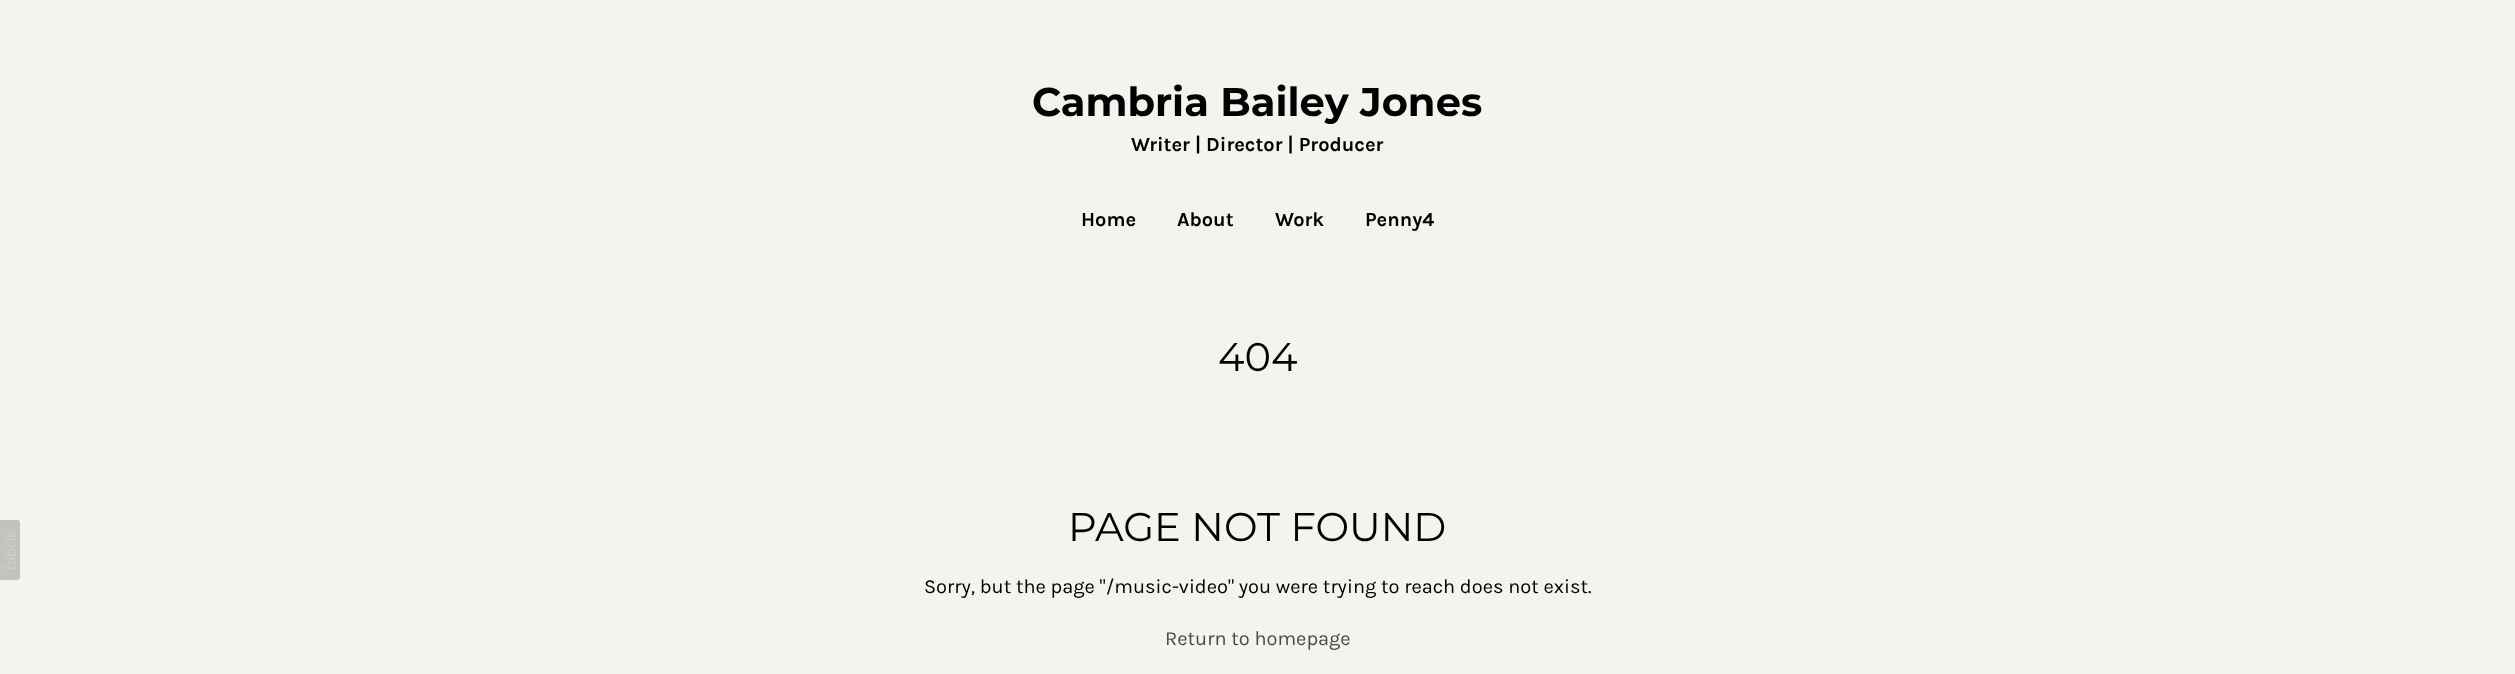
<!DOCTYPE html>
<meta charset="utf-8">
<style>body { margin: 0 } canvas { display: block }</style>
<canvas id="canvas" width="2515" height="674"></canvas>
<script type="module">
  const canvas = document.getElementById("canvas");
  const g = canvas.getContext("2d");
  g.miterLimit = 4;
  g.fontKerning = "normal";
  function drawText(s, x, y, [font, color]) {
    g.font = font;
    g.fillStyle = color;
    g.fillText(s, x, y);
  }
  function fillBox(x, y, w, h, color) {
    g.fillStyle = color;
    g.fillRect(x, y, w, h);
  }
  async function drawPicture(src, x, y, w, h) {
    const img = new Image();
    img.src = src;
    await img.decode();
    g.drawImage(img, x, y, w, h);
  }

  const s1 = ["bold 40px Montserrat", "#000000"];
  const s2 = ["bold 20px Karla", "#000000"];
  const s3 = ["40px Montserrat", "#000000"];
  const s4 = ["20px Karla", "#000000"];
  const s5 = ["20px Karla", "#4A4A4A"];

  fillBox(0, 0, 2515, 674, "#F4F3EE");
  await drawPicture("pic1.png", 0, 520, 20, 60);
  drawText("Cambria Bailey Jones", 1032, 116, s1);
  drawText("Writer | Director | Producer", 1131, 151, s2);
  drawText("Home", 1081, 226, s2);
  drawText("About", 1177, 226, s2);
  drawText("Work", 1275, 226, s2);
  drawText("Penny4", 1365, 226, s2);
  drawText("404", 1218, 371, s3);
  drawText("PAGE NOT FOUND", 1068, 541, s3);
  drawText("Sorry, but the page \"/music-video\" you were trying to reach does not exist.", 924, 593, s4);
  drawText("Return to homepage", 1165, 645, s5);
</script>
